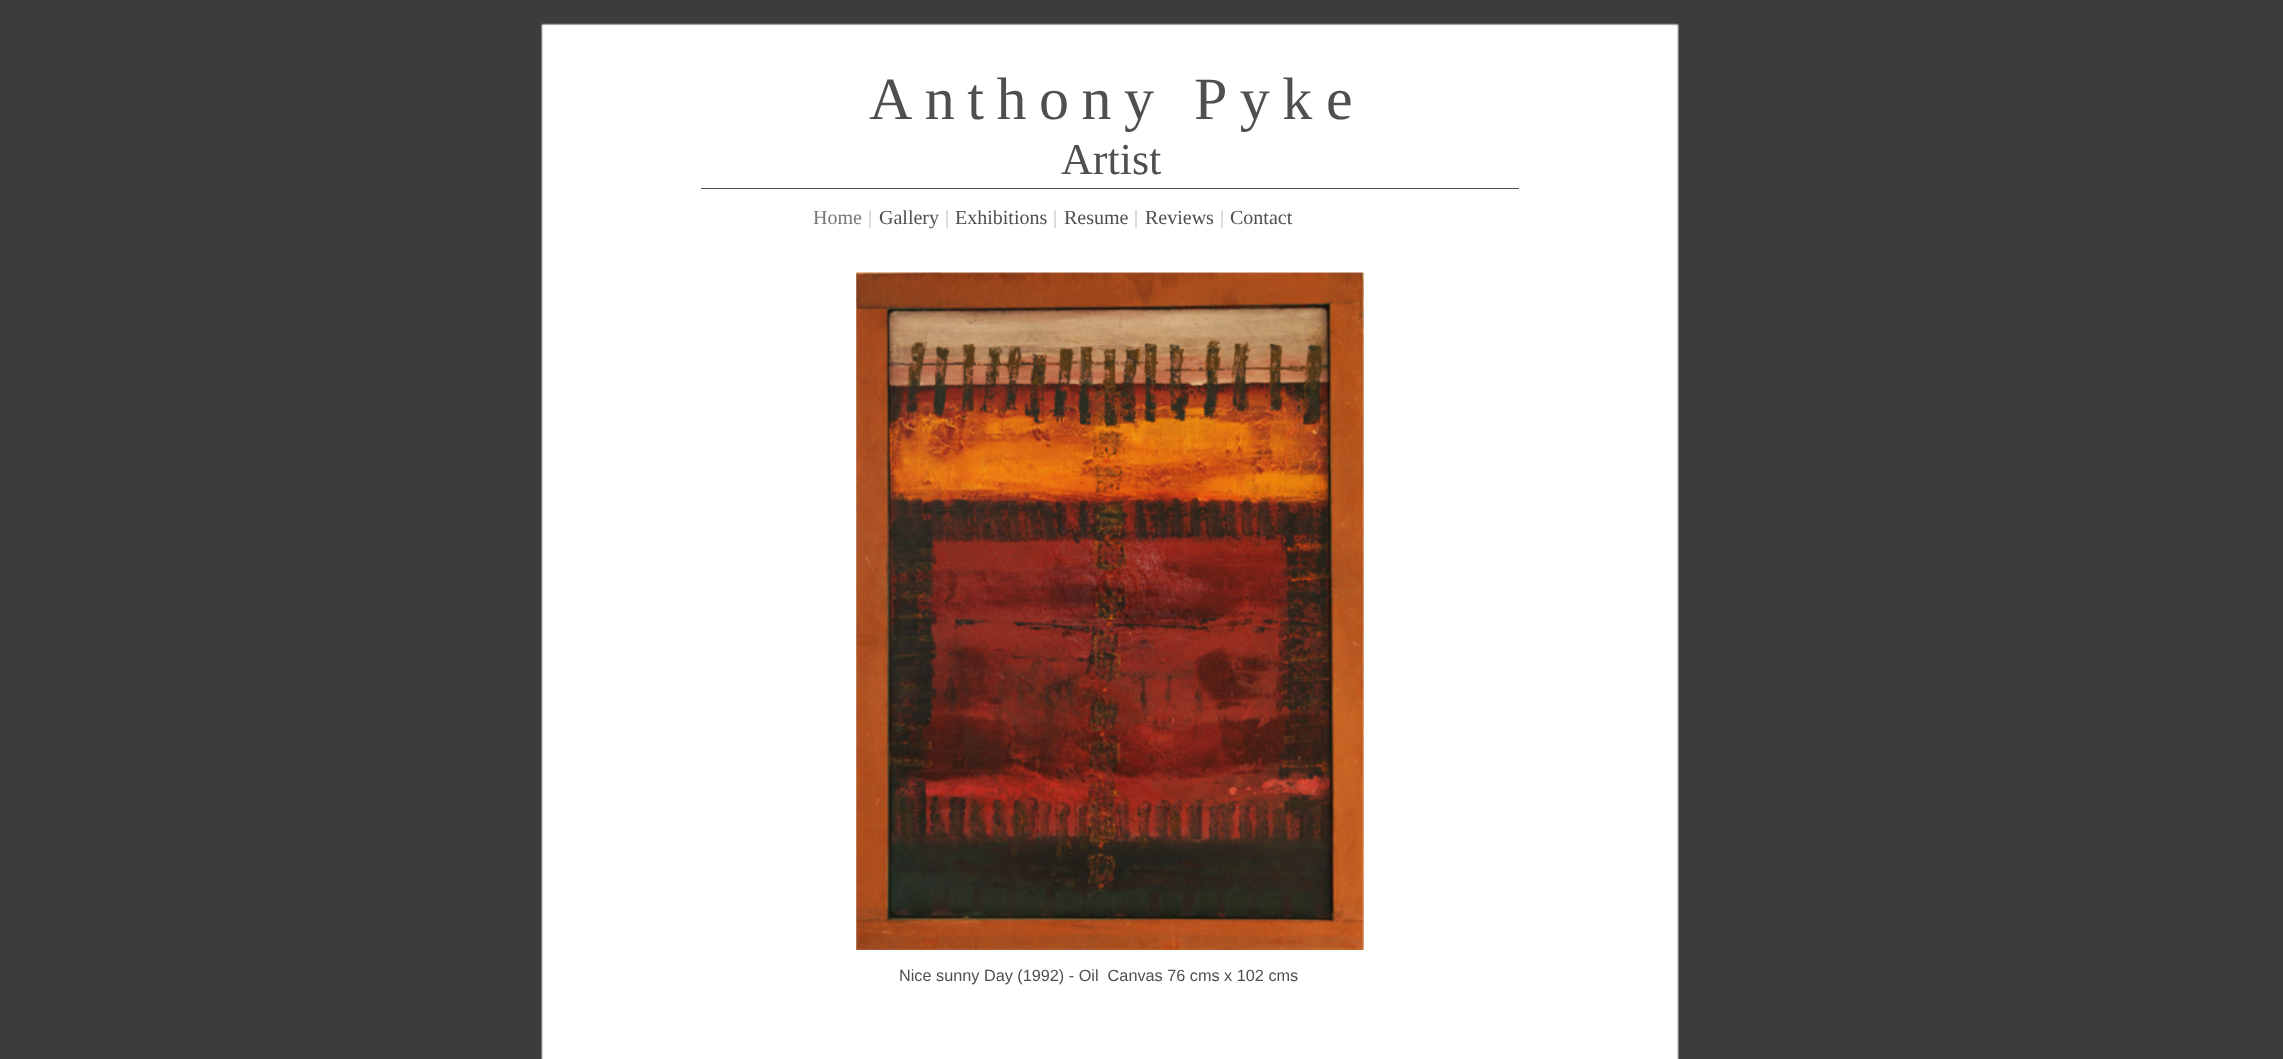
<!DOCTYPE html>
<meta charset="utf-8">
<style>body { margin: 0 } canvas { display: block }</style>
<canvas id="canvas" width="2283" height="1059"></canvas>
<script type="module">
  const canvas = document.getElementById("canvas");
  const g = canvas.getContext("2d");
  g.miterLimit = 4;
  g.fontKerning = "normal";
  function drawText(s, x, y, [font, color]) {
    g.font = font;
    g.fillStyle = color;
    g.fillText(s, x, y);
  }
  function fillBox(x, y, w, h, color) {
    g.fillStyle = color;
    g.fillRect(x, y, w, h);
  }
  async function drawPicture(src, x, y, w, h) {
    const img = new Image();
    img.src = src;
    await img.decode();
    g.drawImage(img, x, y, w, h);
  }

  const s1 = ["60px Liberation Serif", "#4F4F4F"];
  const s2 = ["44px Liberation Serif", "#4F4F4F"];
  const s3 = ["20px Liberation Serif", "#777777"];
  const s4 = ["20px Liberation Serif", "#C0C0C0"];
  const s5 = ["20px Liberation Serif", "#4F4F4F"];
  const s6 = ["16.25px Liberation Sans", "#4F4F4F"];

  fillBox(0, 0, 2283, 1059, "#3C3C3C");
  await drawPicture("pic1.png", 541, 23, 1138, 1036);
  g.letterSpacing = "12.5px";
  drawText("Anthony Pyk", 869, 119, s1);
  g.letterSpacing = "0px";
  drawText("e", 1326, 119, s1);
  drawText("Artist", 1061, 174, s2);
  fillBox(701, 188, 818, 1, "#4F4F4F");
  drawText("Home", 813, 224, s3);
  drawText("|", 868, 224, s4);
  drawText("Gallery", 879, 224, s5);
  drawText("|", 945, 224, s4);
  drawText("Exhibitions", 955, 224, s5);
  drawText("|", 1053, 224, s4);
  drawText("Resume", 1064, 224, s5);
  drawText("|", 1134, 224, s4);
  drawText("Reviews", 1145, 224, s5);
  drawText("|", 1220, 224, s4);
  drawText("Contact", 1230, 224, s5);
  await drawPicture("pic2.png", 856, 272, 508, 678);
  drawText("Nice sunny Day (1992) - Oil  Canvas 76 cms x 102 cms", 899, 981, s6);
</script>
